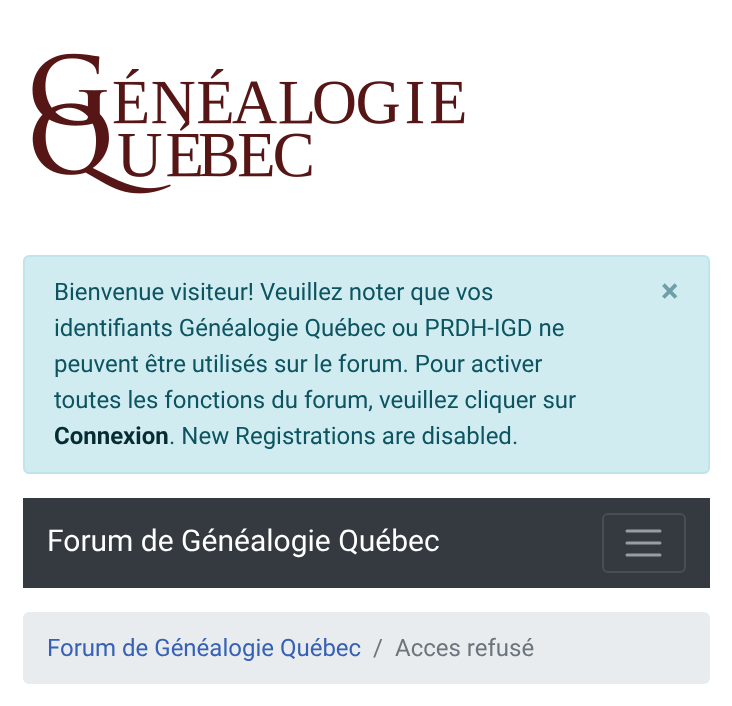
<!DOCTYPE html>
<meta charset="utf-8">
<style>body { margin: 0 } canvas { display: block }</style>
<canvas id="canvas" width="732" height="706"></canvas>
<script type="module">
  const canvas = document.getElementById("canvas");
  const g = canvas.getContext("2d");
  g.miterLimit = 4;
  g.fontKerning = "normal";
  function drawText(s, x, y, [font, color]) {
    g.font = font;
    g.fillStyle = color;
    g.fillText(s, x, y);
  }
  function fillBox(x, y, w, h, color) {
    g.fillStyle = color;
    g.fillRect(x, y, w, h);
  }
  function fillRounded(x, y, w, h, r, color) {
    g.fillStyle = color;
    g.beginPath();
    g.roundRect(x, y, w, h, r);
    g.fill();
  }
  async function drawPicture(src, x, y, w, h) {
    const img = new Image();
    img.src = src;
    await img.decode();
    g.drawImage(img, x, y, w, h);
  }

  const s1 = ["24px Roboto", "#0C5460"];
  const s2 = ["bold 33px Roboto", "#6FA0A9"];
  const s3 = ["bold 24px Roboto", "#062C33"];
  const s4 = ["30px Roboto", "#FFFFFF"];
  const s5 = ["24px Roboto", "#3761B5"];
  const s6 = ["24px Roboto", "#6C757D"];

  fillBox(0, 0, 732, 706, "#FFFFFF");
  await drawPicture("pic1.png", 32, 53, 433, 141);
  g.fillStyle = "#D1ECF1";
  g.beginPath();
  g.roundRect(24, 256, 685, 217, 5);
  g.fill();
  g.strokeStyle = "#BEE5EB";
  g.lineWidth = 2;
  g.stroke();
  drawText("Bienvenue visiteur! Veuillez noter que vos", 54, 300, s1);
  drawText("×", 661, 302, s2);
  drawText("identifiants Généalogie Québec ou PRDH-IGD ne", 54, 336, s1);
  drawText("peuvent être utilisés sur le forum. Pour activer", 54, 372, s1);
  drawText("toutes les fonctions du forum, veuillez cliquer sur", 54, 408, s1);
  drawText("Connexion", 54, 444, s3);
  drawText(". New Registrations are disabled.", 169, 444, s1);
  fillBox(23, 498, 687, 90, "#343A40");
  drawText("Forum de Généalogie Québec", 47, 551, s4);
  g.beginPath();
  g.roundRect(603, 514, 82, 58, 5);
  g.strokeStyle = "#484E53";
  g.stroke();
  g.beginPath();
  g.moveTo(627, 531);
  g.lineTo(660, 531);
  g.moveTo(627, 543);
  g.lineTo(660, 543);
  g.moveTo(627, 555);
  g.lineTo(660, 555);
  g.strokeStyle = "#9A9DA0";
  g.lineWidth = 3;
  g.lineCap = "round";
  g.stroke();
  fillRounded(23, 612, 687, 72, 6, "#E9ECEF");
  drawText("Forum de Généalogie Québec", 47, 656, s5);
  drawText("/", 373, 656, s6);
  drawText("Acces refusé", 395, 656, s6);
</script>
